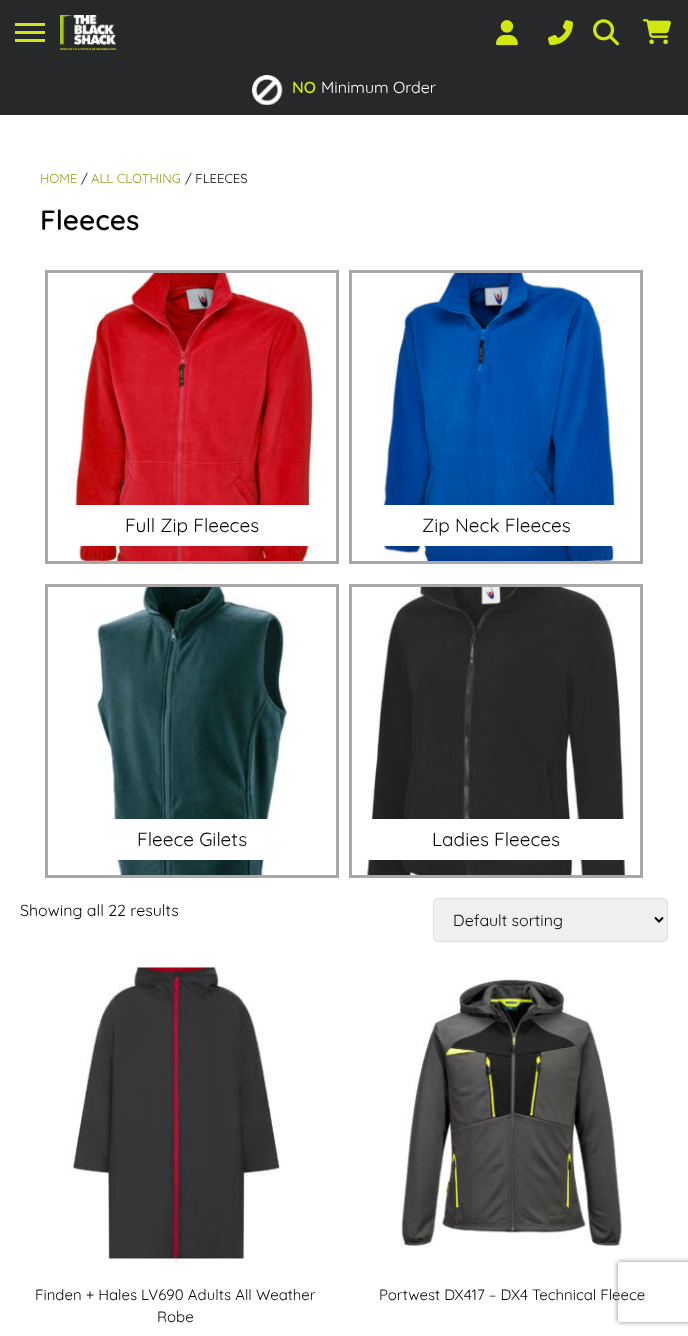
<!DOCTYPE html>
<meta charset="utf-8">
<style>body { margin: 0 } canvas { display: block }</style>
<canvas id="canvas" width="688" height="1336"></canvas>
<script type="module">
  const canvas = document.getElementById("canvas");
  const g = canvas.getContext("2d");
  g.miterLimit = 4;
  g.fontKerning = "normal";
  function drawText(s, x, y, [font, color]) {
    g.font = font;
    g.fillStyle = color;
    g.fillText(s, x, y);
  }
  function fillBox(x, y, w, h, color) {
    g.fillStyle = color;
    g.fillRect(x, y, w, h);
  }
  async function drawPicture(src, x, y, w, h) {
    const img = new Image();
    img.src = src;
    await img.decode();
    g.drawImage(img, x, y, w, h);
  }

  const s1 = ["600 16px Quicksand", "#D2E70F"];
  const s2 = ["16px Quicksand", "#FFFFFF"];
  const s3 = ["13px Quicksand", "#95A21C"];
  const s4 = ["13px Quicksand", "#070606"];
  const s5 = ["600 28px Quicksand", "#070606"];
  const s6 = ["19px Quicksand", "#070606"];
  const s7 = ["16px Quicksand", "#070606"];
  const s8 = ["15px Quicksand", "#070606"];

  fillBox(0, 0, 688, 1336, "#FFFFFF");
  fillBox(0, 0, 688, 115, "#272829");
  fillBox(15, 23, 30, 3, "#D2E70F");
  fillBox(15, 31, 30, 3, "#D2E70F");
  fillBox(15, 39, 30, 3, "#D2E70F");
  await drawPicture("pic1.png", 60, 15, 56, 35);
  await drawPicture("pic2.png", 496, 20, 22, 26);
  await drawPicture("pic3.png", 548, 20, 25, 26);
  await drawPicture("pic4.png", 593, 19, 26, 27);
  await drawPicture("pic5.png", 643, 19, 28, 26);
  await drawPicture("pic6.png", 252, 75, 31, 30);
  drawText("NO", 292, 93, s1);
  drawText("Minimum Order", 321, 93, s2);
  drawText("HOME", 40, 183, s3);
  drawText("/", 81, 183, s4);
  drawText("ALL CLOTHING", 91, 183, s3);
  drawText("/ FLEECES", 185, 183, s4);
  drawText("Fleeces", 40, 230, s5);
  g.strokeStyle = "#A9A8A7";
  g.lineWidth = 3;
  g.strokeRect(46.5, 271.5, 291, 291);
  await drawPicture("pic7.png", 48, 273, 288, 288);
  fillBox(71, 505, 246, 41, "#FFFFFF");
  drawText("Full Zip Fleeces", 125, 532, s6);
  g.strokeRect(350.5, 271.5, 291, 291);
  await drawPicture("pic8.png", 352, 273, 288, 288);
  fillBox(382, 505, 239, 41, "#FFFFFF");
  drawText("Zip Neck Fleeces", 422, 532, s6);
  g.strokeRect(46.5, 585.5, 291, 291);
  await drawPicture("pic9.png", 48, 587, 288, 288);
  fillBox(113, 819, 165, 41, "#FFFFFF");
  drawText("Fleece Gilets", 137, 846, s6);
  g.strokeRect(350.5, 585.5, 291, 291);
  await drawPicture("pic10.png", 352, 587, 288, 288);
  fillBox(367, 819, 258, 41, "#FFFFFF");
  drawText("Ladies Fleeces", 432, 846, s6);
  drawText("Showing all 22 results", 20, 916, s7);
  g.fillStyle = "#EFEFEF";
  g.beginPath();
  g.roundRect(433.5, 898.5, 234, 43, 4.5);
  g.fill();
  g.strokeStyle = "#E1E1E2";
  g.lineWidth = 1;
  g.stroke();
  g.beginPath();
  g.moveTo(655, 917.5);
  g.lineTo(659, 921.5);
  g.lineTo(663, 917.5);
  g.strokeStyle = "#070606";
  g.lineWidth = 2;
  g.stroke();
  drawText("Default sorting", 453, 926, s7);
  await drawPicture("pic11.png", 70, 967, 212, 292);
  drawText("Finden + Hales LV690 Adults All Weather", 35, 1300, s8);
  drawText("Robe", 157, 1322, s8);
  await drawPicture("pic12.png", 400, 977, 223, 269);
  drawText("Portwest DX417 – DX4 Technical Fleece", 379, 1300, s8);
  g.save();
  g.beginPath();
  g.moveTo(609, 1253);
  g.lineTo(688, 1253);
  g.lineTo(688, 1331);
  g.lineTo(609, 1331);
  g.closePath();
  g.moveTo(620, 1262);
  g.lineTo(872, 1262);
  g.bezierCurveTo(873, 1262, 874, 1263, 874, 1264);
  g.lineTo(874, 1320);
  g.bezierCurveTo(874, 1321, 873, 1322, 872, 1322);
  g.lineTo(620, 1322);
  g.bezierCurveTo(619, 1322, 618, 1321, 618, 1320);
  g.lineTo(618, 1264);
  g.bezierCurveTo(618, 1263, 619, 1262, 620, 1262);
  g.closePath();
  g.clip("evenodd");
  g.fillStyle = "#808080";
  g.filter = "blur(2.5px)";
  g.beginPath();
  g.roundRect(618, 1262, 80, 60, 2);
  g.fill();
  g.filter = "none";
  g.restore();
</script>
